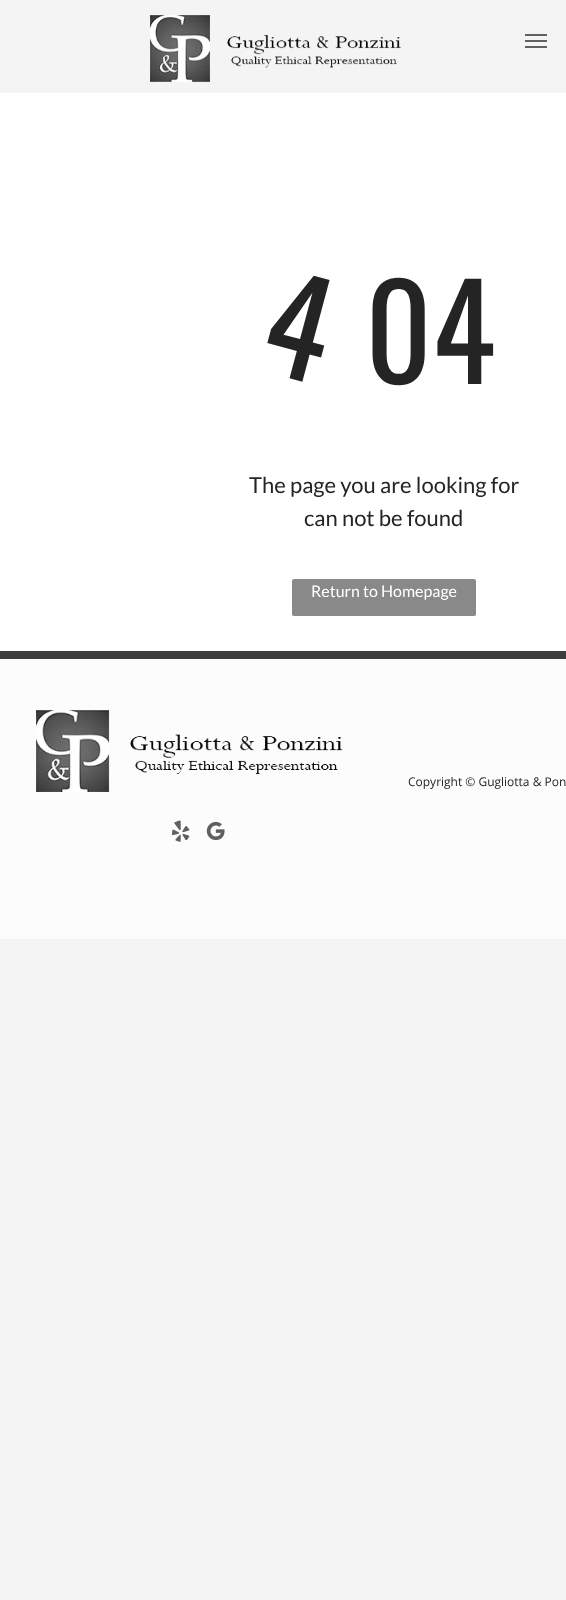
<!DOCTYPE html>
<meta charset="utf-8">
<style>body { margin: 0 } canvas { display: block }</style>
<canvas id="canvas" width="566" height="1600"></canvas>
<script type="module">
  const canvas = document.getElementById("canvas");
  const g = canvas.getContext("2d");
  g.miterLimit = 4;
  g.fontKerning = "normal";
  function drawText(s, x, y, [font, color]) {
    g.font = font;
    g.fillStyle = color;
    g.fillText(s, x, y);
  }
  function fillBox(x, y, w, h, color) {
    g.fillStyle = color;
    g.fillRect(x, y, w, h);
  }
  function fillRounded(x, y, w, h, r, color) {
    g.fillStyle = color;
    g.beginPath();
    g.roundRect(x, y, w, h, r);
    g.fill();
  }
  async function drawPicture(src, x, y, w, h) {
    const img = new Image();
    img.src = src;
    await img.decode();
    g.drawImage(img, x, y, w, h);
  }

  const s1 = ["130px Oswald", "#242424"];
  const s2 = ["22px Lato", "#242424"];
  const s3 = ["16px Lato", "#FFFFFF"];
  const s4 = ["12px Open Sans", "#242424"];

  fillBox(0, 0, 566, 1600, "#F4F4F4");
  await drawPicture("pic1.png", 150, 15, 251, 67);
  fillBox(525, 34, 22, 2, "#606060");
  fillBox(525, 40, 22, 2, "#606060");
  fillBox(525, 46, 22, 2, "#606060");
  fillBox(0, 93, 566, 558, "#FFFFFF");
  g.font = "130px Oswald";
  g.fillStyle = "#242424";
  g.save();
  g.translate(255, 369);
  g.rotate(15 * Math.PI / 180);
  g.fillText("4", 0, 0);
  g.restore();
  drawText("04", 365, 384, s1);
  drawText("The page you are looking for", 249, 493, s2);
  drawText("can not be found", 304, 526, s2);
  fillRounded(292, 579, 184, 37, 2, "#898989");
  drawText("Return to Homepage", 311, 597, s3);
  fillBox(0, 659, 566, 280, "#FCFCFC");
  fillBox(0, 651, 566, 8, "#3D3D3D");
  await drawPicture("pic2.png", 36, 710, 307, 82);
  await drawPicture("pic3.png", 172, 820, 18, 22);
  await drawPicture("pic4.png", 206, 821, 19, 20);
  drawText("Copyright © Gugliotta & Pon", 408, 786, s4);
</script>
